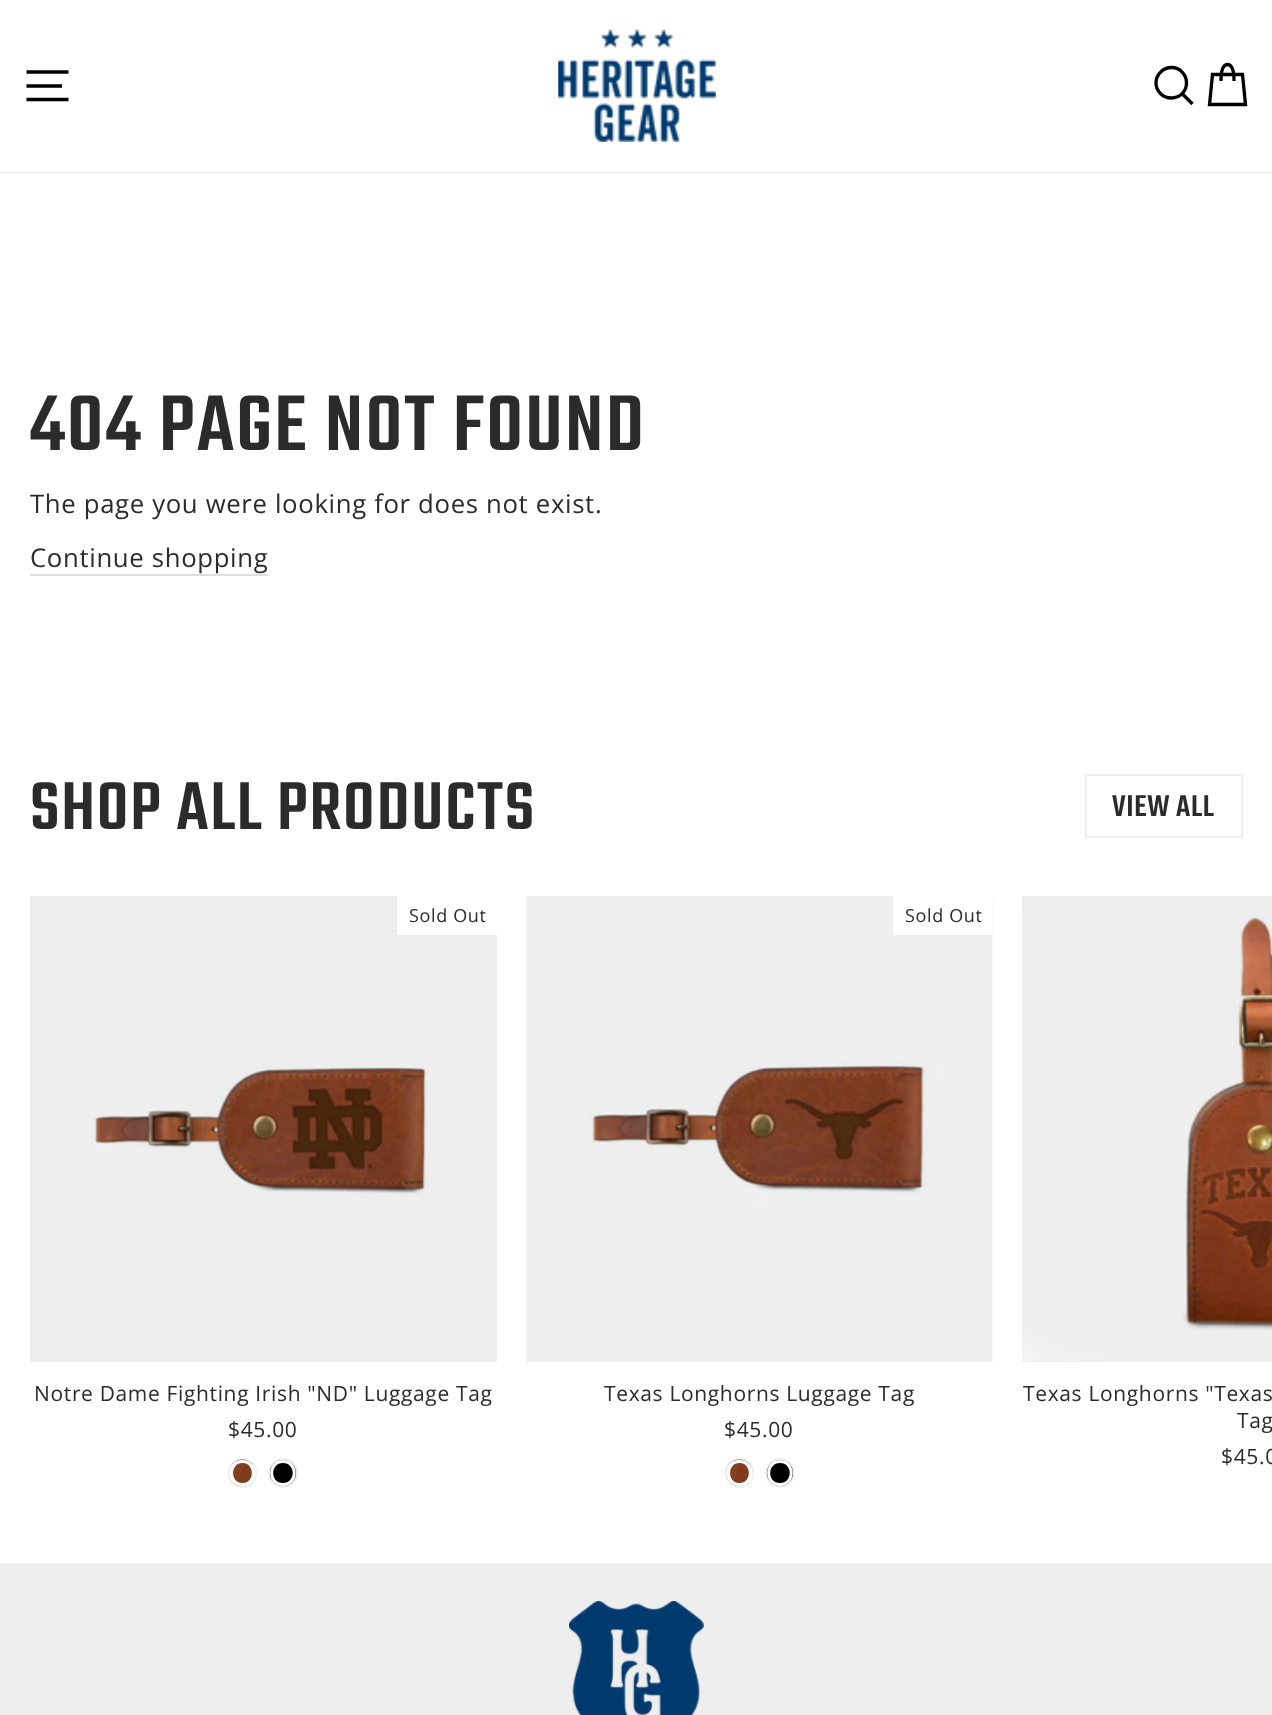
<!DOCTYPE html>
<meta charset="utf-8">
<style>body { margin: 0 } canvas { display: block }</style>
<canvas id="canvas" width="1272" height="1715"></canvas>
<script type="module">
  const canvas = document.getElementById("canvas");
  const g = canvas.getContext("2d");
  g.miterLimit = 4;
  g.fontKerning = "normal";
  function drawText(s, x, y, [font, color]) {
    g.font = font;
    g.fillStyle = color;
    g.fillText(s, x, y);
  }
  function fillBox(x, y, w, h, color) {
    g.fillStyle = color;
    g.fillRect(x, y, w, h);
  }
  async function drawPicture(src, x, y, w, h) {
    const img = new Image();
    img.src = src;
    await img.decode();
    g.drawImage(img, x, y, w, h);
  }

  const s1 = ["500 86.25px Teko", "#2B2B2B"];
  const s2 = ["25.75px Open Sans", "#2B2B2B"];
  const s3 = ["500 74px Teko", "#2B2B2B"];
  const s4 = ["500 33px Teko", "#2B2B2B"];
  const s5 = ["18px Open Sans", "#2B2B2B"];
  const s6 = ["21px Open Sans", "#2B2B2B"];

  fillBox(0, 0, 1272, 1715, "#FFFFFF");
  g.fillStyle = "rgba(0, 0, 0, 0.2)";
  g.filter = "blur(1px)";
  g.beginPath();
  g.rect(0, 0, 1272, 172);
  g.fill();
  g.filter = "none";
  fillBox(0, 0, 1272, 172, "#FFFFFF");
  g.beginPath();
  g.moveTo(26.5, 72);
  g.lineTo(68.5, 72);
  g.moveTo(26.5, 86);
  g.lineTo(62, 86);
  g.moveTo(26.5, 99.5);
  g.lineTo(68.5, 99.5);
  g.strokeStyle = "#000000";
  g.lineWidth = 3.3;
  g.stroke();
  await drawPicture("pic1.png", 558, 29, 158, 113);
  g.beginPath();
  g.moveTo(1186.5, 83);
  g.bezierCurveTo(1186.5, 91.5, 1180, 98, 1171.5, 98);
  g.bezierCurveTo(1163, 98, 1156, 91.5, 1156, 83);
  g.bezierCurveTo(1156, 74.5, 1163, 67.5, 1171.5, 67.5);
  g.bezierCurveTo(1180, 67.5, 1186.5, 74.5, 1186.5, 83);
  g.closePath();
  g.moveTo(1192.5, 104);
  g.lineTo(1182.5, 94);
  g.stroke();
  g.beginPath();
  g.moveTo(1221, 81);
  g.bezierCurveTo(1221, 68, 1224, 64.5, 1227.5, 64.5);
  g.bezierCurveTo(1231, 64.5, 1234, 68, 1234, 81);
  g.moveTo(1212.5, 74.5);
  g.lineTo(1242.5, 74.5);
  g.lineTo(1245.5, 104.5);
  g.lineTo(1209.5, 104.5);
  g.closePath();
  g.stroke();
  g.letterSpacing = "2.2px";
  drawText("404 PAGE NOT FOUND", 30, 450, s1);
  g.letterSpacing = "0.65px";
  drawText("The page you were looking for does not exist.", 30, 513, s2);
  fillBox(30, 574, 238, 2, "#DFDFDF");
  drawText("Continue shopping", 30, 567, s2);
  g.letterSpacing = "1.8px";
  drawText("SHOP ALL PRODUCTS", 30, 829, s3);
  g.strokeStyle = "#EEEEEE";
  g.lineWidth = 2;
  g.strokeRect(1086, 775, 156, 62);
  g.letterSpacing = "0.65px";
  drawText("VIEW ALL", 1112, 816, s4);
  fillBox(30, 896, 467, 466, "#EEEEEE");
  fillBox(397, 896, 100, 39, "#FFFFFF");
  drawText("Sold Out", 409, 922, s5);
  await drawPicture("pic2.png", 93, 1064, 336, 130);
  drawText("Notre Dame Fighting Irish \"ND\" Luggage Tag", 34, 1401, s6);
  drawText("$45.00", 228, 1437, s6);
  g.beginPath();
  g.roundRect(229, 1459, 27, 28, 13.5);
  g.stroke();
  await drawPicture("pic3.png", 229, 1459, 27, 27);
  g.fillStyle = "#FFFFFF";
  g.beginPath();
  g.moveTo(242, 1460);
  g.bezierCurveTo(225.5, 1460, 224, 1484.5, 242, 1486);
  g.bezierCurveTo(245, 1486, 248, 1485.5, 250.5, 1484);
  g.bezierCurveTo(261, 1476.5, 255.5, 1460, 243, 1460);
  g.closePath();
  g.moveTo(242.5, 1463);
  g.bezierCurveTo(230, 1463, 230, 1483, 242.5, 1483);
  g.bezierCurveTo(255, 1483, 255, 1463, 242.5, 1463);
  g.closePath();
  g.fill("evenodd");
  g.beginPath();
  g.arc(283, 1473, 14, 0, Math.PI * 2);
  g.stroke();
  g.fillStyle = "#000000";
  g.beginPath();
  g.arc(283, 1473, 13, 0, Math.PI * 2);
  g.fill();
  g.fillStyle = "#FFFFFF";
  g.beginPath();
  g.moveTo(283, 1460);
  g.bezierCurveTo(266, 1460, 266, 1486, 283, 1486);
  g.bezierCurveTo(300, 1486, 300, 1460, 283, 1460);
  g.closePath();
  g.moveTo(283, 1463);
  g.bezierCurveTo(270, 1463, 270, 1483, 283, 1483);
  g.bezierCurveTo(296, 1483, 296, 1463, 283, 1463);
  g.closePath();
  g.fill("evenodd");
  fillBox(527, 896, 465, 466, "#EEEEEE");
  await drawPicture("pic4.png", 526, 896, 467, 466);
  fillBox(893, 896, 99, 39, "#FFFFFF");
  drawText("Sold Out", 905, 922, s5);
  drawText("Texas Longhorns Luggage Tag", 604, 1401, s6);
  drawText("$45.00", 724, 1437, s6);
  g.beginPath();
  g.roundRect(726, 1459, 27, 28, 13.5);
  g.stroke();
  await drawPicture("pic5.png", 726, 1459, 27, 27);
  g.fillStyle = "#FFFFFF";
  g.beginPath();
  g.moveTo(739, 1460);
  g.bezierCurveTo(722.5, 1460, 721, 1484.5, 739, 1486);
  g.bezierCurveTo(742, 1486, 745, 1485.5, 747.5, 1484);
  g.bezierCurveTo(758, 1476.5, 752.5, 1460, 740, 1460);
  g.closePath();
  g.moveTo(739.5, 1463);
  g.bezierCurveTo(727, 1463, 727, 1483, 739.5, 1483);
  g.bezierCurveTo(752, 1483, 752, 1463, 739.5, 1463);
  g.closePath();
  g.fill("evenodd");
  g.beginPath();
  g.arc(780, 1473, 14, 0, Math.PI * 2);
  g.stroke();
  g.fillStyle = "#000000";
  g.beginPath();
  g.arc(780, 1473, 13, 0, Math.PI * 2);
  g.fill();
  g.fillStyle = "#FFFFFF";
  g.beginPath();
  g.moveTo(780, 1460);
  g.bezierCurveTo(763, 1460, 763, 1486, 780, 1486);
  g.bezierCurveTo(797, 1486, 797, 1460, 780, 1460);
  g.closePath();
  g.moveTo(780, 1463);
  g.bezierCurveTo(767, 1463, 767, 1483, 780, 1483);
  g.bezierCurveTo(793, 1483, 793, 1463, 780, 1463);
  g.closePath();
  g.fill("evenodd");
  fillBox(1022, 896, 250, 466, "#EEEEEE");
  await drawPicture("pic6.png", 1022, 917, 250, 444);
  drawText("Texas Longhorns \"Texas", 1023, 1401, s6);
  drawText("Tag", 1237, 1428, s6);
  drawText("$45.0", 1221, 1464, s6);
  fillBox(0, 1563, 1272, 152, "#EEEEEE");
  await drawPicture("pic7.png", 569, 1601, 135, 114);
</script>
